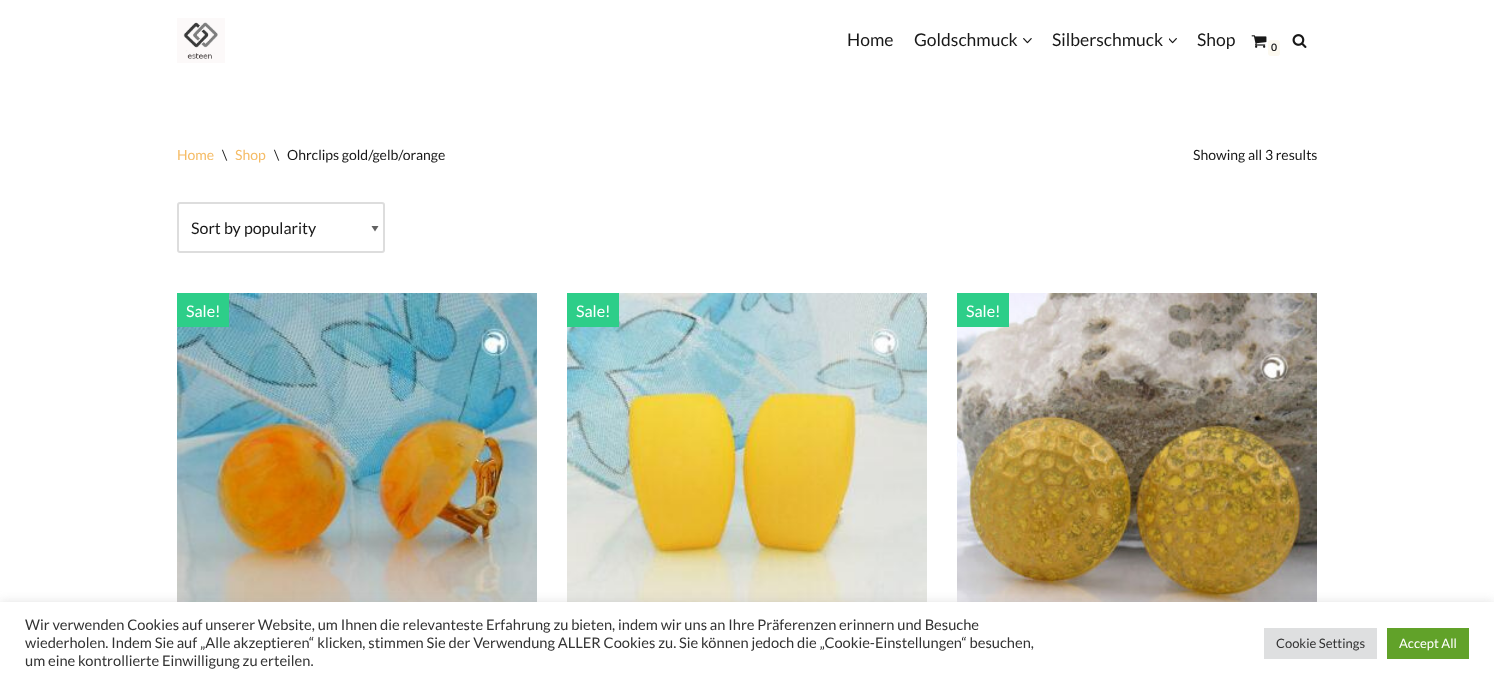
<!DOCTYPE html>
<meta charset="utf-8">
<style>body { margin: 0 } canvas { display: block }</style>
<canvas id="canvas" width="1494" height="684"></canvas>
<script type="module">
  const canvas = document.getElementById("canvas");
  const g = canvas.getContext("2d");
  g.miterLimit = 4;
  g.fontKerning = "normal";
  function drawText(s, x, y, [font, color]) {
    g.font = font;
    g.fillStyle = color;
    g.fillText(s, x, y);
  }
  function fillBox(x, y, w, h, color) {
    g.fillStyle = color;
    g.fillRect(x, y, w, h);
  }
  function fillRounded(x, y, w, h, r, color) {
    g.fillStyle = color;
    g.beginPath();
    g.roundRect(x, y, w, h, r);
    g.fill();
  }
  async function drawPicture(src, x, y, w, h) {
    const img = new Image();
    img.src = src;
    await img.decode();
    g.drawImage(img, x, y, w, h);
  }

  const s1 = ["17.5px Lato", "#181818"];
  const s2 = ["bold 10px Lato", "#181818"];
  const s3 = ["14px Lato", "#F5BC66"];
  const s4 = ["14px Lato", "#181818"];
  const s5 = ["16px Lato", "#181818"];
  const s6 = ["16px Lato", "#FFFFFF"];
  const s7 = ["14.67px Lato", "#333333"];
  const s8 = ["13px Lato", "#333333"];
  const s9 = ["13px Lato", "#FFFFFF"];

  fillBox(0, 0, 1494, 684, "#FFFFFF");
  await drawPicture("pic1.png", 177, 18, 48, 45);
  drawText("Home", 847, 46, s1);
  drawText("Goldschmuck", 914, 46, s1);
  await drawPicture("pic2.png", 1023, 38, 9, 6);
  drawText("Silberschmuck", 1052, 46, s1);
  await drawPicture("pic3.png", 1169, 38, 8, 6);
  drawText("Shop", 1197, 46, s1);
  await drawPicture("pic4.png", 1251, 35, 16, 13);
  fillRounded(1268, 40, 12, 16, 3, "#FCF9F0");
  drawText("0", 1271, 51, s2);
  await drawPicture("pic5.png", 1292, 34, 15, 14);
  drawText("Home", 177, 160, s3);
  drawText("\\", 222, 160, s4);
  drawText("Shop", 235, 160, s3);
  drawText("\\", 274, 160, s4);
  drawText("Ohrclips gold/gelb/orange", 287, 160, s4);
  drawText("Showing all 3 results", 1193, 160, s4);
  g.fillStyle = "#626262";
  g.beginPath();
  g.moveTo(378.5, 226);
  g.lineTo(375, 231.5);
  g.lineTo(371.5, 226);
  g.closePath();
  g.fill();
  g.beginPath();
  g.roundRect(178, 203, 206, 49, 2);
  g.strokeStyle = "#DDDDDD";
  g.lineWidth = 2;
  g.stroke();
  drawText("Sort by popularity", 191, 234, s5);
  await drawPicture("pic6.png", 177, 293, 360, 309);
  fillBox(177, 293, 52, 34, "#2DCE89");
  drawText("Sale!", 186, 317, s6);
  await drawPicture("pic7.png", 567, 293, 360, 309);
  fillBox(567, 293, 52, 34, "#2DCE89");
  drawText("Sale!", 576, 317, s6);
  await drawPicture("pic8.png", 957, 293, 360, 309);
  fillBox(957, 293, 52, 34, "#2DCE89");
  drawText("Sale!", 966, 317, s6);
  g.fillStyle = "rgba(172, 171, 171, 0.3)";
  g.filter = "blur(5px)";
  g.beginPath();
  g.rect(0, 601, 1494, 82);
  g.fill();
  g.filter = "none";
  fillBox(0, 602, 1494, 82, "#FFFFFF");
  drawText("Wir verwenden Cookies auf unserer Website, um Ihnen die relevanteste Erfahrung zu bieten, indem wir uns an Ihre Präferenzen erinnern und Besuche", 25, 630, s7);
  drawText("wiederholen. Indem Sie auf „Alle akzeptieren“ klicken, stimmen Sie der Verwendung ALLER Cookies zu. Sie können jedoch die „Cookie-Einstellungen“ besuchen,", 25, 648, s7);
  drawText("um eine kontrollierte Einwilligung zu erteilen.", 25, 666, s7);
  fillBox(1264, 628, 113, 31, "#DEDFE0");
  drawText("Cookie Settings", 1276, 648, s8);
  fillBox(1387, 628, 82, 31, "#61A229");
  drawText("Accept All", 1399, 648, s9);
</script>
